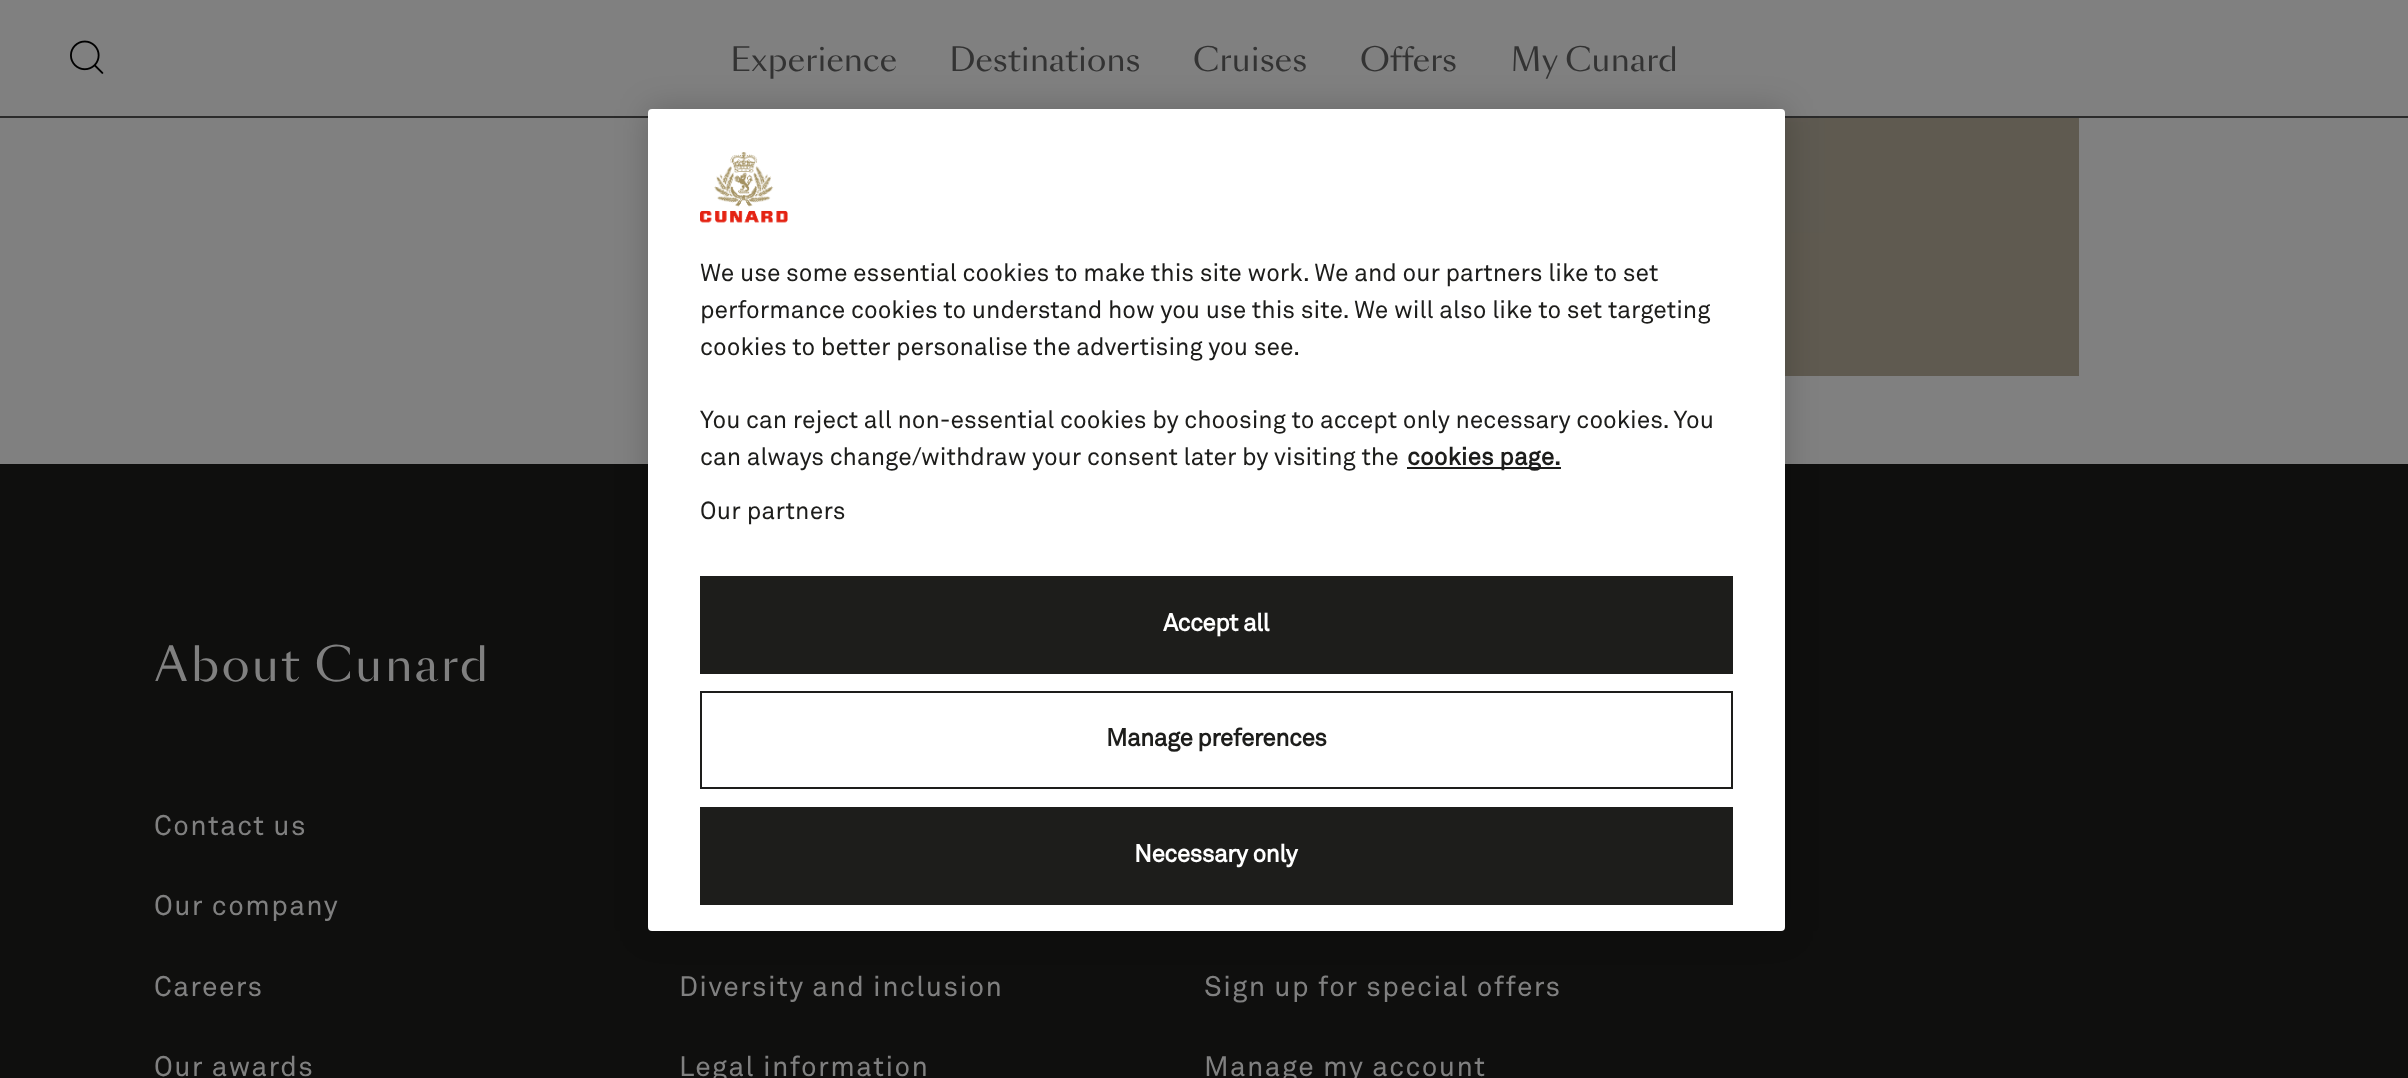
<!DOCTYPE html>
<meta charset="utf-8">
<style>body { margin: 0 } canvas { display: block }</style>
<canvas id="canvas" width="2408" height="1078"></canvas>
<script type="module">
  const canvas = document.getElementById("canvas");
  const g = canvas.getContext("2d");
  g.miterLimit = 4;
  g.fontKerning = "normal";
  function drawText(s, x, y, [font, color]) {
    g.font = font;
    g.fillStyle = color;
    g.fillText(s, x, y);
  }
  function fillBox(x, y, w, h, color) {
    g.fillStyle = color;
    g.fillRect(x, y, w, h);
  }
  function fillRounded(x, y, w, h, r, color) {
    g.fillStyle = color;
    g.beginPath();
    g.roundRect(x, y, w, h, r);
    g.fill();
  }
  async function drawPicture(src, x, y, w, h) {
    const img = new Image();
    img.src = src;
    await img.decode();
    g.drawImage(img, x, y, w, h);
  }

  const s1 = ["31.5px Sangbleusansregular", "#333333"];
  const s2 = ["45.5px Sangbleusansregular", "#808080"];
  const s3 = ["28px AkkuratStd", "#808080"];
  const s4 = ["24.5px AkkuratStd", "#1D1D1B"];
  const s5 = ["bold 24.5px AkkuratStd", "#1D1D1B"];
  const s6 = ["bold 24.5px AkkuratStd", "#FFFFFF"];

  fillBox(0, 0, 2408, 1078, "#808080");
  await drawPicture("pic1.png", 70, 40, 34, 34);
  fillBox(0, 116, 2408, 2, "#2B2B2B");
  drawText("Experience", 730, 71, s1);
  drawText("Destinations", 949, 71, s1);
  drawText("Cruises", 1193, 71, s1);
  drawText("Offers", 1360, 71, s1);
  drawText("My Cunard", 1510, 71, s1);
  await drawPicture("pic2.png", 1785, 118, 294, 258);
  fillBox(0, 464, 2408, 614, "#0F0F0E");
  g.letterSpacing = "2.25px";
  drawText("About Cunard", 154, 681, s2);
  g.letterSpacing = "1.4px";
  drawText("Contact us", 154, 835, s3);
  drawText("Our company", 154, 915, s3);
  drawText("Careers", 154, 996, s3);
  drawText("Our awards", 154, 1076, s3);
  drawText("Diversity and inclusion", 679, 996, s3);
  drawText("Legal information", 679, 1076, s3);
  drawText("Sign up for special offers", 1204, 996, s3);
  drawText("Manage my account", 1204, 1076, s3);
  g.fillStyle = "rgba(0, 0, 0, 0.2)";
  g.filter = "blur(16px)";
  g.beginPath();
  g.roundRect(648, 109, 1137, 822, 4);
  g.fill();
  g.filter = "none";
  fillRounded(648, 109, 1137, 822, 4, "#FFFFFF");
  await drawPicture("pic3.png", 700, 152, 88, 71);
  g.letterSpacing = "0px";
  drawText("We use some essential cookies to make this site work. We and our partners like to set", 700, 281, s4);
  drawText("performance cookies to understand how you use this site. We will also like to set targeting", 700, 318, s4);
  drawText("cookies to better personalise the advertising you see.", 700, 355, s4);
  drawText("You can reject all non-essential cookies by choosing to accept only necessary cookies. You", 700, 428, s4);
  drawText("can always change/withdraw your consent later by visiting the", 700, 465, s4);
  fillBox(1407, 467, 154, 2, "#1D1D1B");
  drawText("cookies page.", 1407, 465, s5);
  g.letterSpacing = "0.25px";
  drawText("Our partners", 700, 519, s4);
  fillBox(700, 576, 1033, 98, "#1D1D1B");
  g.letterSpacing = "-0.6px";
  drawText("Accept all", 1163, 631, s6);
  fillBox(700, 807, 1033, 98, "#1D1D1B");
  drawText("Necessary only", 1134, 862, s6);
  g.strokeStyle = "#1D1D1B";
  g.lineWidth = 2;
  g.strokeRect(701, 692, 1031, 96);
  drawText("Manage preferences", 1106, 746, s5);
</script>
